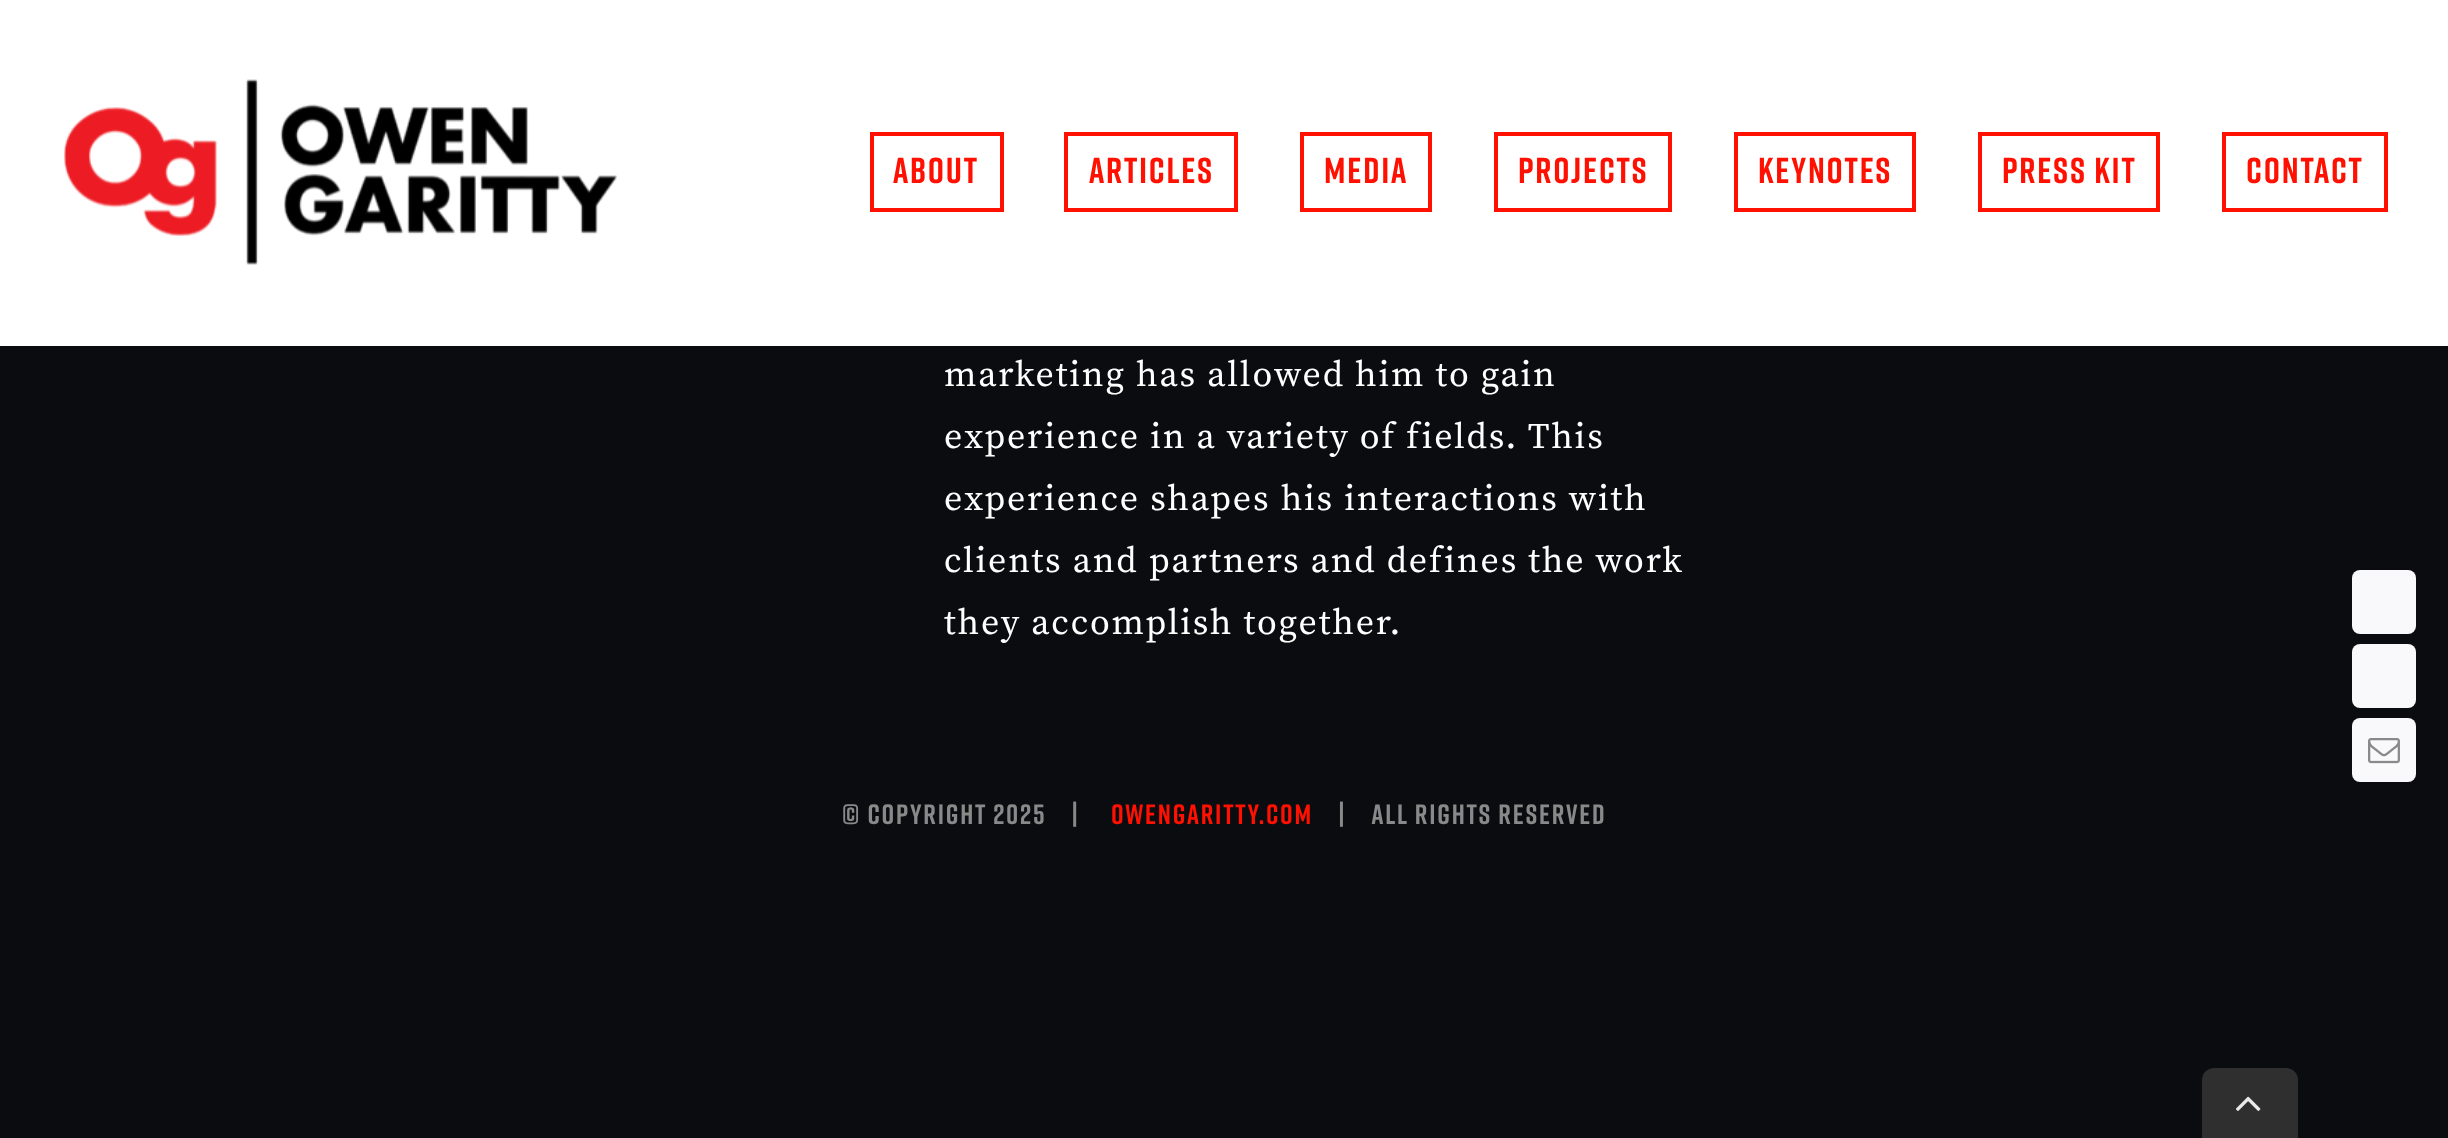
<!DOCTYPE html>
<meta charset="utf-8">
<style>body { margin: 0 } canvas { display: block }</style>
<canvas id="canvas" width="2448" height="1138"></canvas>
<script type="module">
  const canvas = document.getElementById("canvas");
  const g = canvas.getContext("2d");
  g.miterLimit = 4;
  g.fontKerning = "normal";
  function drawText(s, x, y, [font, color]) {
    g.font = font;
    g.fillStyle = color;
    g.fillText(s, x, y);
  }
  function fillBox(x, y, w, h, color) {
    g.fillStyle = color;
    g.fillRect(x, y, w, h);
  }
  function fillRounded(x, y, w, h, r, color) {
    g.fillStyle = color;
    g.beginPath();
    g.roundRect(x, y, w, h, r);
    g.fill();
  }
  async function drawPicture(src, x, y, w, h) {
    const img = new Image();
    img.src = src;
    await img.decode();
    g.drawImage(img, x, y, w, h);
  }

  const s1 = ["bold 36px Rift", "#FF1000"];
  const s2 = ["36px Source Serif Pro", "#FFFFFF"];
  const s3 = ["bold 28px Rift", "#898989"];
  const s4 = ["bold 28px Rift", "#FF1000"];

  fillBox(0, 0, 2448, 1138, "#0A0C10");
  fillBox(0, 0, 2448, 346, "#FFFFFF");
  await drawPicture("pic1.png", 64, 79, 553, 186);
  g.strokeStyle = "#FF1000";
  g.lineWidth = 4;
  g.strokeRect(872, 134, 130, 76);
  g.letterSpacing = "1.8px";
  drawText("ABOUT", 893, 183, s1);
  g.strokeRect(1066, 134, 170, 76);
  drawText("ARTICLES", 1089, 183, s1);
  g.strokeRect(1302, 134, 128, 76);
  drawText("MEDIA", 1324, 183, s1);
  g.strokeRect(1496, 134, 174, 76);
  drawText("PROJECTS", 1518, 183, s1);
  g.strokeRect(1736, 134, 178, 76);
  drawText("KEYNOTES", 1758, 183, s1);
  g.strokeRect(1980, 134, 178, 76);
  drawText("PRESS KIT", 2002, 183, s1);
  g.strokeRect(2224, 134, 162, 76);
  drawText("CONTACT", 2246, 183, s1);
  fillRounded(2352, 570, 64, 64, 8, "#F9F9FB");
  fillRounded(2352, 644, 64, 64, 8, "#F9F9FB");
  fillRounded(2352, 718, 64, 64, 8, "#F9F9FB");
  await drawPicture("pic2.png", 2368, 738, 32, 26);
  drawText("marketing has allowed him to gain", 944, 386, s2);
  drawText("experience in a variety of fields. This", 944, 448, s2);
  drawText("experience shapes his interactions with", 944, 510, s2);
  drawText("clients and partners and defines the work", 944, 572, s2);
  drawText("they accomplish together.", 944, 634, s2);
  drawText("© Copyright 2025    |", 842, 824, s3);
  drawText("owengaritty.com", 1111, 824, s4);
  drawText("|    All Rights Reserved", 1338, 824, s3);
  g.fillStyle = "#2F2F30";
  g.beginPath();
  g.roundRect(2202, 1068, 96, 70, [12, 12, 0, 0]);
  g.fill();
  await drawPicture("pic3.png", 2236, 1096, 25, 15);
</script>
